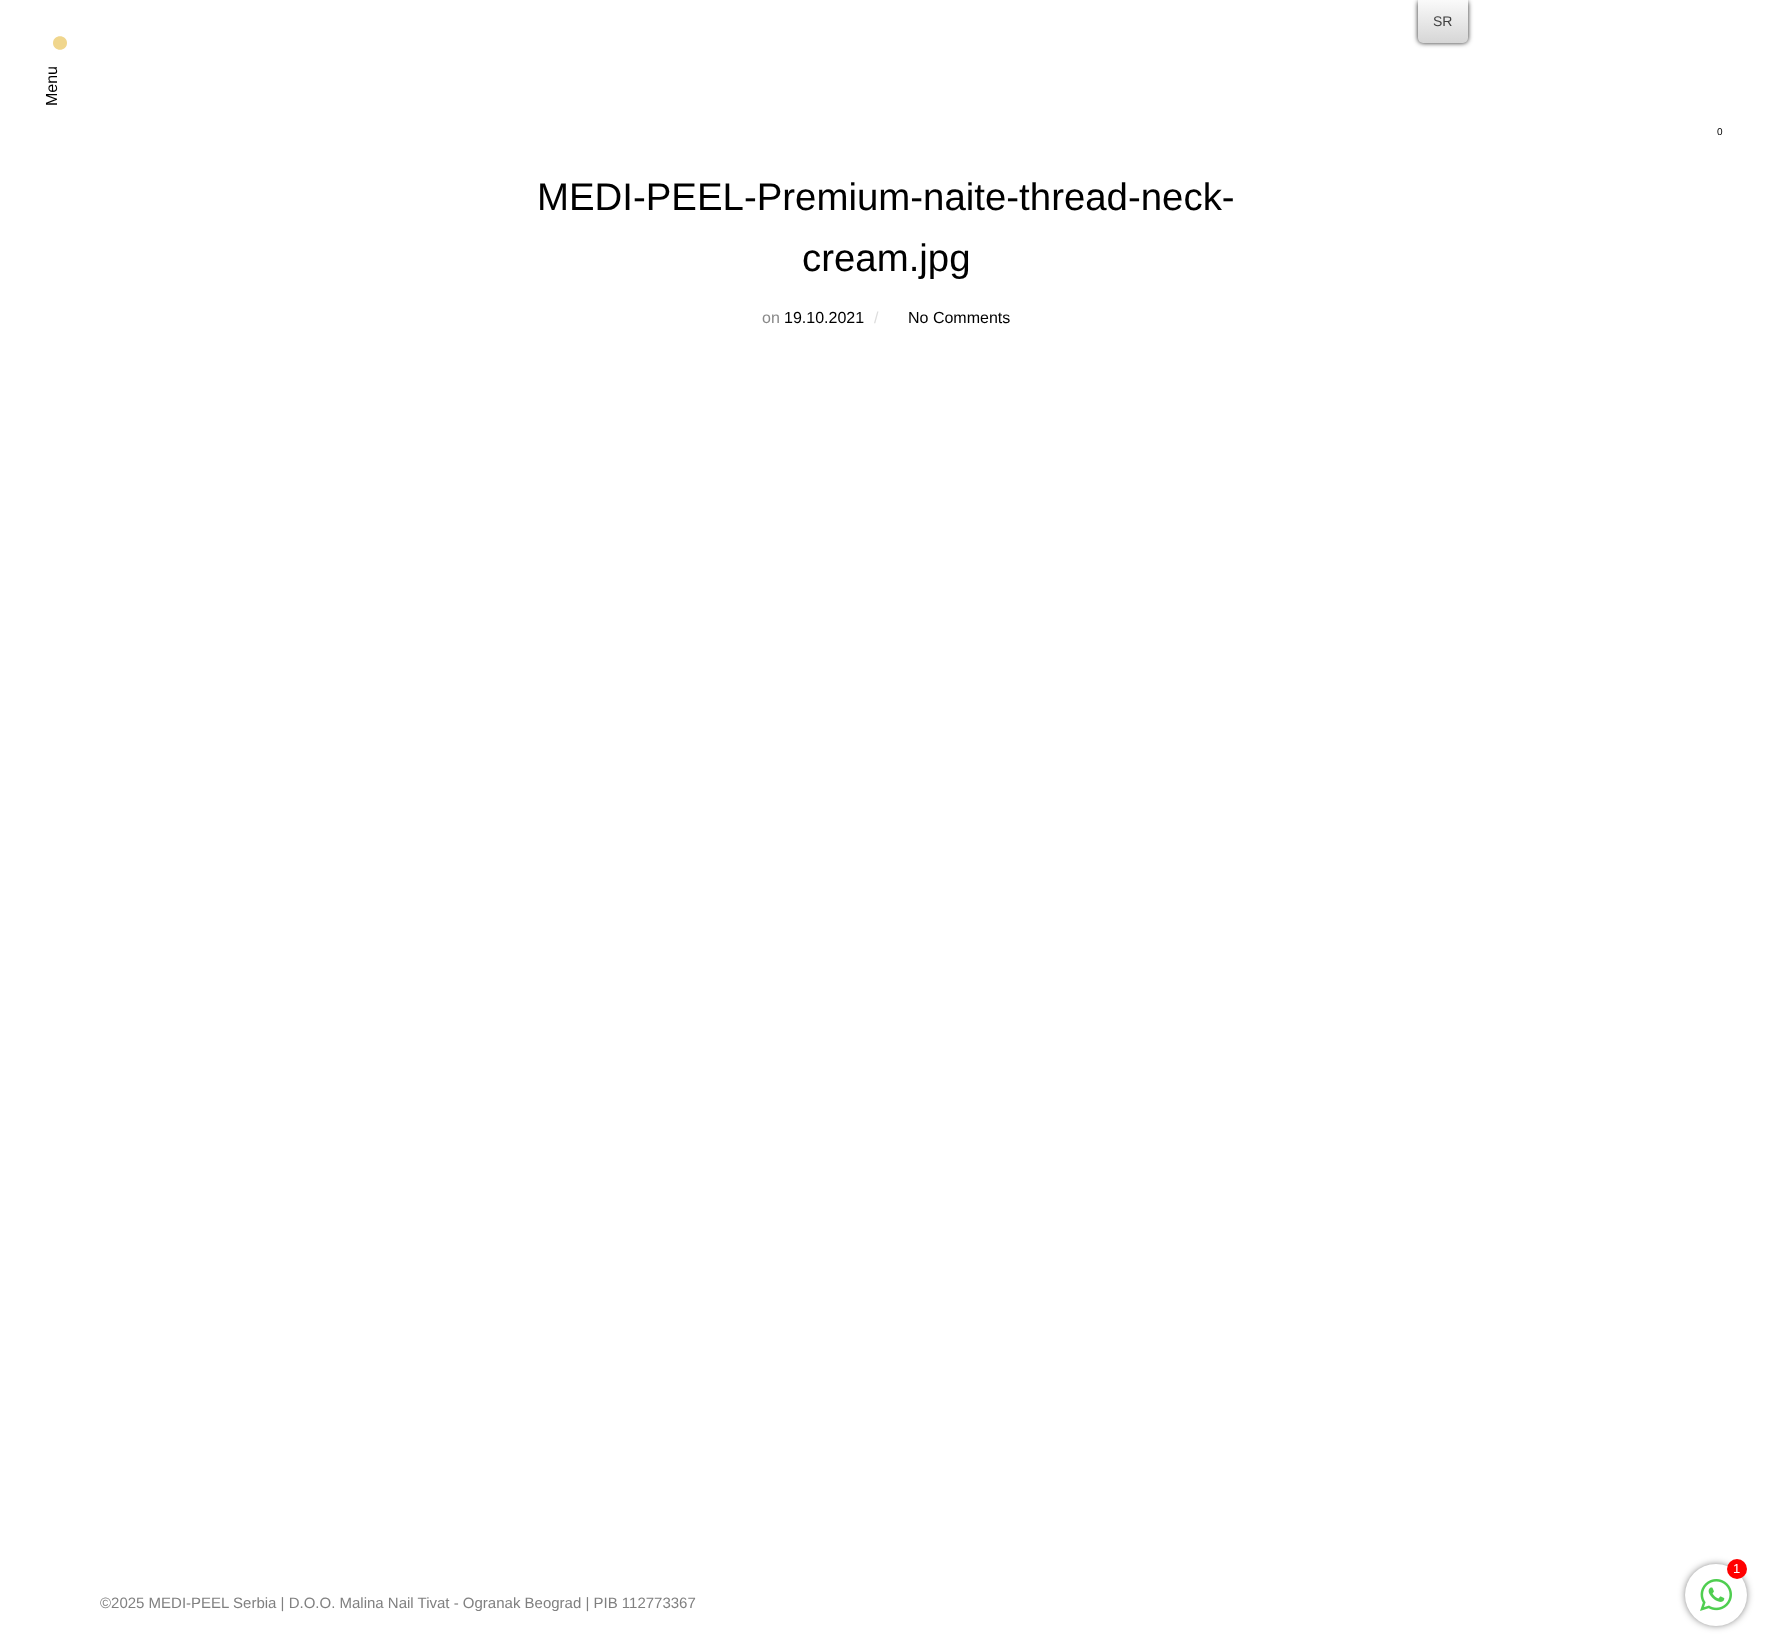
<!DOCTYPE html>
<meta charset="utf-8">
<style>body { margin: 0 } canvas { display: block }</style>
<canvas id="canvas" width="1772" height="1646"></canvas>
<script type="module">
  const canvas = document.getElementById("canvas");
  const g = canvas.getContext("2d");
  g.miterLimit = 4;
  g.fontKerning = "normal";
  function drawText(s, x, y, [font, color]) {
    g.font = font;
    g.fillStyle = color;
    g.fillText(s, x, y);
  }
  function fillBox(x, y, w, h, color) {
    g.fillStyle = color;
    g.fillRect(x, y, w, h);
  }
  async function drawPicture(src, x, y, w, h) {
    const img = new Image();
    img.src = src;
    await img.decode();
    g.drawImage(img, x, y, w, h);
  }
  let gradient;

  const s1 = ["14px Liberation Sans", "#404040"];
  const s2 = ["10px Liberation Sans", "#000000"];
  const s3 = ["38.4px Liberation Sans", "#000000"];
  const s4 = ["16px Liberation Sans", "#888888"];
  const s5 = ["16px Liberation Sans", "#000000"];
  const s6 = ["16px Liberation Sans", "#DDDDDD"];
  const s7 = ["13px Liberation Sans", "#FFFFFF"];
  const s8 = ["15px Liberation Sans", "#808080"];

  fillBox(0, 0, 1772, 1646, "#FFFFFF");
  g.fillStyle = "#212121";
  g.filter = "blur(2.5px)";
  g.beginPath();
  g.roundRect(1418, 0, 50, 43, 5);
  g.fill();
  g.filter = "none";
  gradient = g.createLinearGradient(1443, 43, 1443, 0);
  gradient.addColorStop(0, "#D6D6D6");
  gradient.addColorStop(1, "#FAFAFA");
  g.fillStyle = gradient;
  g.beginPath();
  g.roundRect(1418, 0, 50, 43, [0, 0, 5, 5]);
  g.fill();
  drawText("SR", 1433, 26, s1);
  g.fillStyle = "#F0D68D";
  g.beginPath();
  g.moveTo(53, 43);
  g.bezierCurveTo(53, 34, 67, 34, 67, 43);
  g.bezierCurveTo(67, 52, 53, 52, 53, 43);
  g.closePath();
  g.fill();
  g.font = "16px Liberation Sans";
  g.fillStyle = "#000000";
  g.save();
  g.translate(57, 106);
  g.rotate(-90 * Math.PI / 180);
  g.fillText("Menu", 0, 0);
  g.restore();
  drawText("0", 1717, 135, s2);
  drawText("MEDI-PEEL-Premium-naite-thread-neck-", 537, 210, s3);
  drawText("cream.jpg", 802, 271, s3);
  drawText("on", 762, 323, s4);
  drawText("19.10.2021", 784, 323, s5);
  drawText("/", 874, 323, s6);
  drawText("No Comments", 908, 323, s5);
  g.filter = "blur(5px)";
  g.beginPath();
  g.roundRect(1688, 1567, 56, 56, 28);
  g.fill();
  g.filter = "none";
  g.fillStyle = "#FFFFFF";
  g.beginPath();
  g.arc(1716, 1595, 31, 0, Math.PI * 2);
  g.fill();
  g.fillStyle = "#FF0000";
  g.beginPath();
  g.arc(1737, 1569, 10, 0, Math.PI * 2);
  g.fill();
  drawText("1", 1733, 1573, s7);
  await drawPicture("pic1.png", 1700, 1579, 32, 32);
  drawText("©2025 MEDI-PEEL Serbia | D.O.O. Malina Nail Tivat - Ogranak Beograd | PIB 112773367", 100, 1608, s8);
</script>
